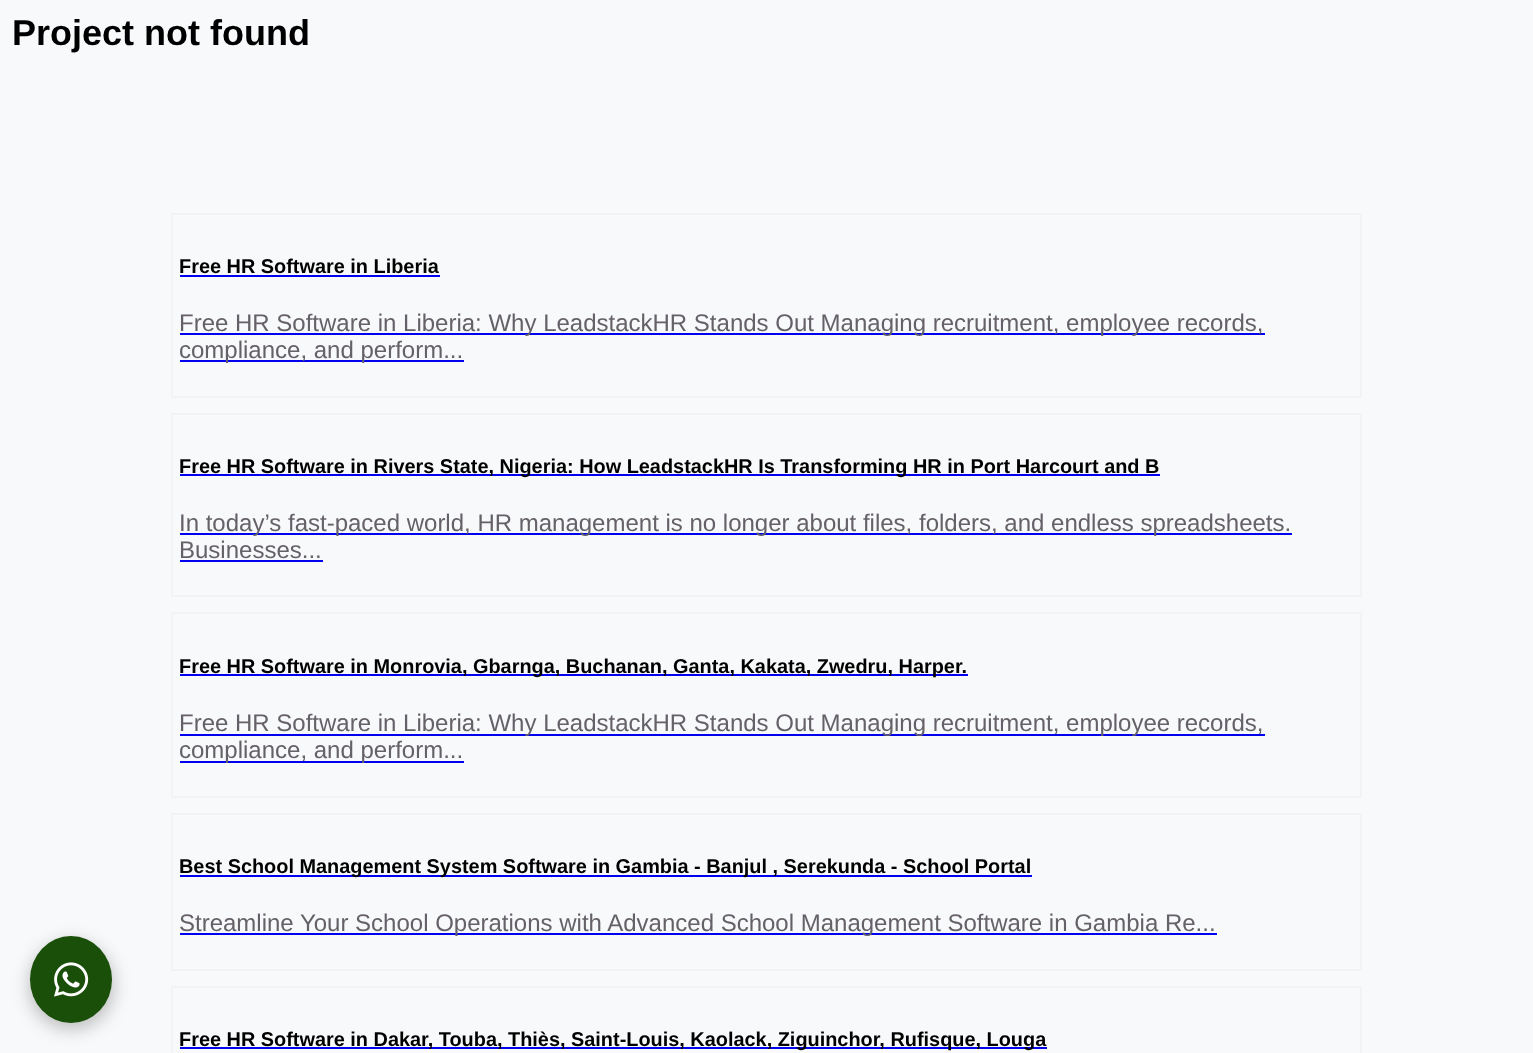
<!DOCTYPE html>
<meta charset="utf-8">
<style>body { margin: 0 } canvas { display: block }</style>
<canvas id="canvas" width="1533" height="1053"></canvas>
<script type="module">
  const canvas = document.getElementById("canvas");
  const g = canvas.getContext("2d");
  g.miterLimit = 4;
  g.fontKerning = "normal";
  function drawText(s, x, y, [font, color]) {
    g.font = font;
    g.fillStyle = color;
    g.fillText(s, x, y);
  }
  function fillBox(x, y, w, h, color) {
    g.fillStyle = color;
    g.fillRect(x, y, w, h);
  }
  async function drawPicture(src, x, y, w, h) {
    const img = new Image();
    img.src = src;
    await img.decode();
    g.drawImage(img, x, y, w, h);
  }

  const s1 = ["bold 36px Liberation Sans", "#000000"];
  const s2 = ["bold 19.9px Liberation Sans", "#000000"];
  const s3 = ["24px Liberation Sans", "#656168"];

  fillBox(0, 0, 1533, 1053, "#F8F9FA");
  drawText("Project not found", 12, 45, s1);
  g.fillStyle = "rgba(0, 0, 0, 0.25)";
  g.filter = "blur(9px)";
  g.beginPath();
  g.roundRect(30, 942, 83, 87, 41.5);
  g.fill();
  g.filter = "none";
  g.fillStyle = "#194F09";
  g.beginPath();
  g.ellipse(71, 979.5, 41, 43.5, 0, 0, Math.PI * 2);
  g.fill();
  await drawPicture("pic1.png", 54, 962, 35, 35);
  g.strokeStyle = "#F3F3F3";
  g.lineWidth = 2;
  g.strokeRect(172, 214, 1189, 183);
  drawText("Free HR Software in Liberia", 179, 273, s2);
  fillBox(180, 275, 260, 2, "#0000EE");
  fillBox(180, 333, 1085, 2, "#0000EE");
  drawText("Free HR Software in Liberia: Why LeadstackHR Stands Out Managing recruitment, employee records,", 179, 331, s3);
  fillBox(180, 360, 284, 2, "#0000EE");
  drawText("compliance, and perform...", 179, 358, s3);
  g.strokeRect(172, 414, 1189, 182);
  fillBox(180, 474, 980, 2, "#0000EE");
  drawText("Free HR Software in Rivers State, Nigeria: How LeadstackHR Is Transforming HR in Port Harcourt and B", 179, 473, s2);
  fillBox(180, 533, 1112, 2, "#0000EE");
  drawText("In today’s fast-paced world, HR management is no longer about files, folders, and endless spreadsheets.", 179, 531, s3);
  drawText("Businesses...", 179, 558, s3);
  fillBox(180, 560, 143, 2, "#0000EE");
  g.strokeRect(172, 613, 1189, 184);
  fillBox(180, 674, 788, 2, "#0000EE");
  drawText("Free HR Software in Monrovia, Gbarnga, Buchanan, Ganta, Kakata, Zwedru, Harper.", 179, 673, s2);
  fillBox(180, 734, 1085, 2, "#0000EE");
  drawText("Free HR Software in Liberia: Why LeadstackHR Stands Out Managing recruitment, employee records,", 179, 731, s3);
  fillBox(180, 761, 284, 2, "#0000EE");
  drawText("compliance, and perform...", 179, 758, s3);
  g.strokeRect(172, 814, 1189, 156);
  fillBox(180, 875, 852, 2, "#0000EE");
  drawText("Best School Management System Software in Gambia - Banjul , Serekunda - School Portal", 179, 873, s2);
  fillBox(180, 933, 1037, 2, "#0000EE");
  drawText("Streamline Your School Operations with Advanced School Management Software in Gambia Re...", 179, 931, s3);
  g.strokeRect(172, 987, 1189, 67);
  fillBox(180, 1047, 867, 2, "#0000EE");
  drawText("Free HR Software in Dakar, Touba, Thiès, Saint-Louis, Kaolack, Ziguinchor, Rufisque, Louga", 179, 1046, s2);
</script>
